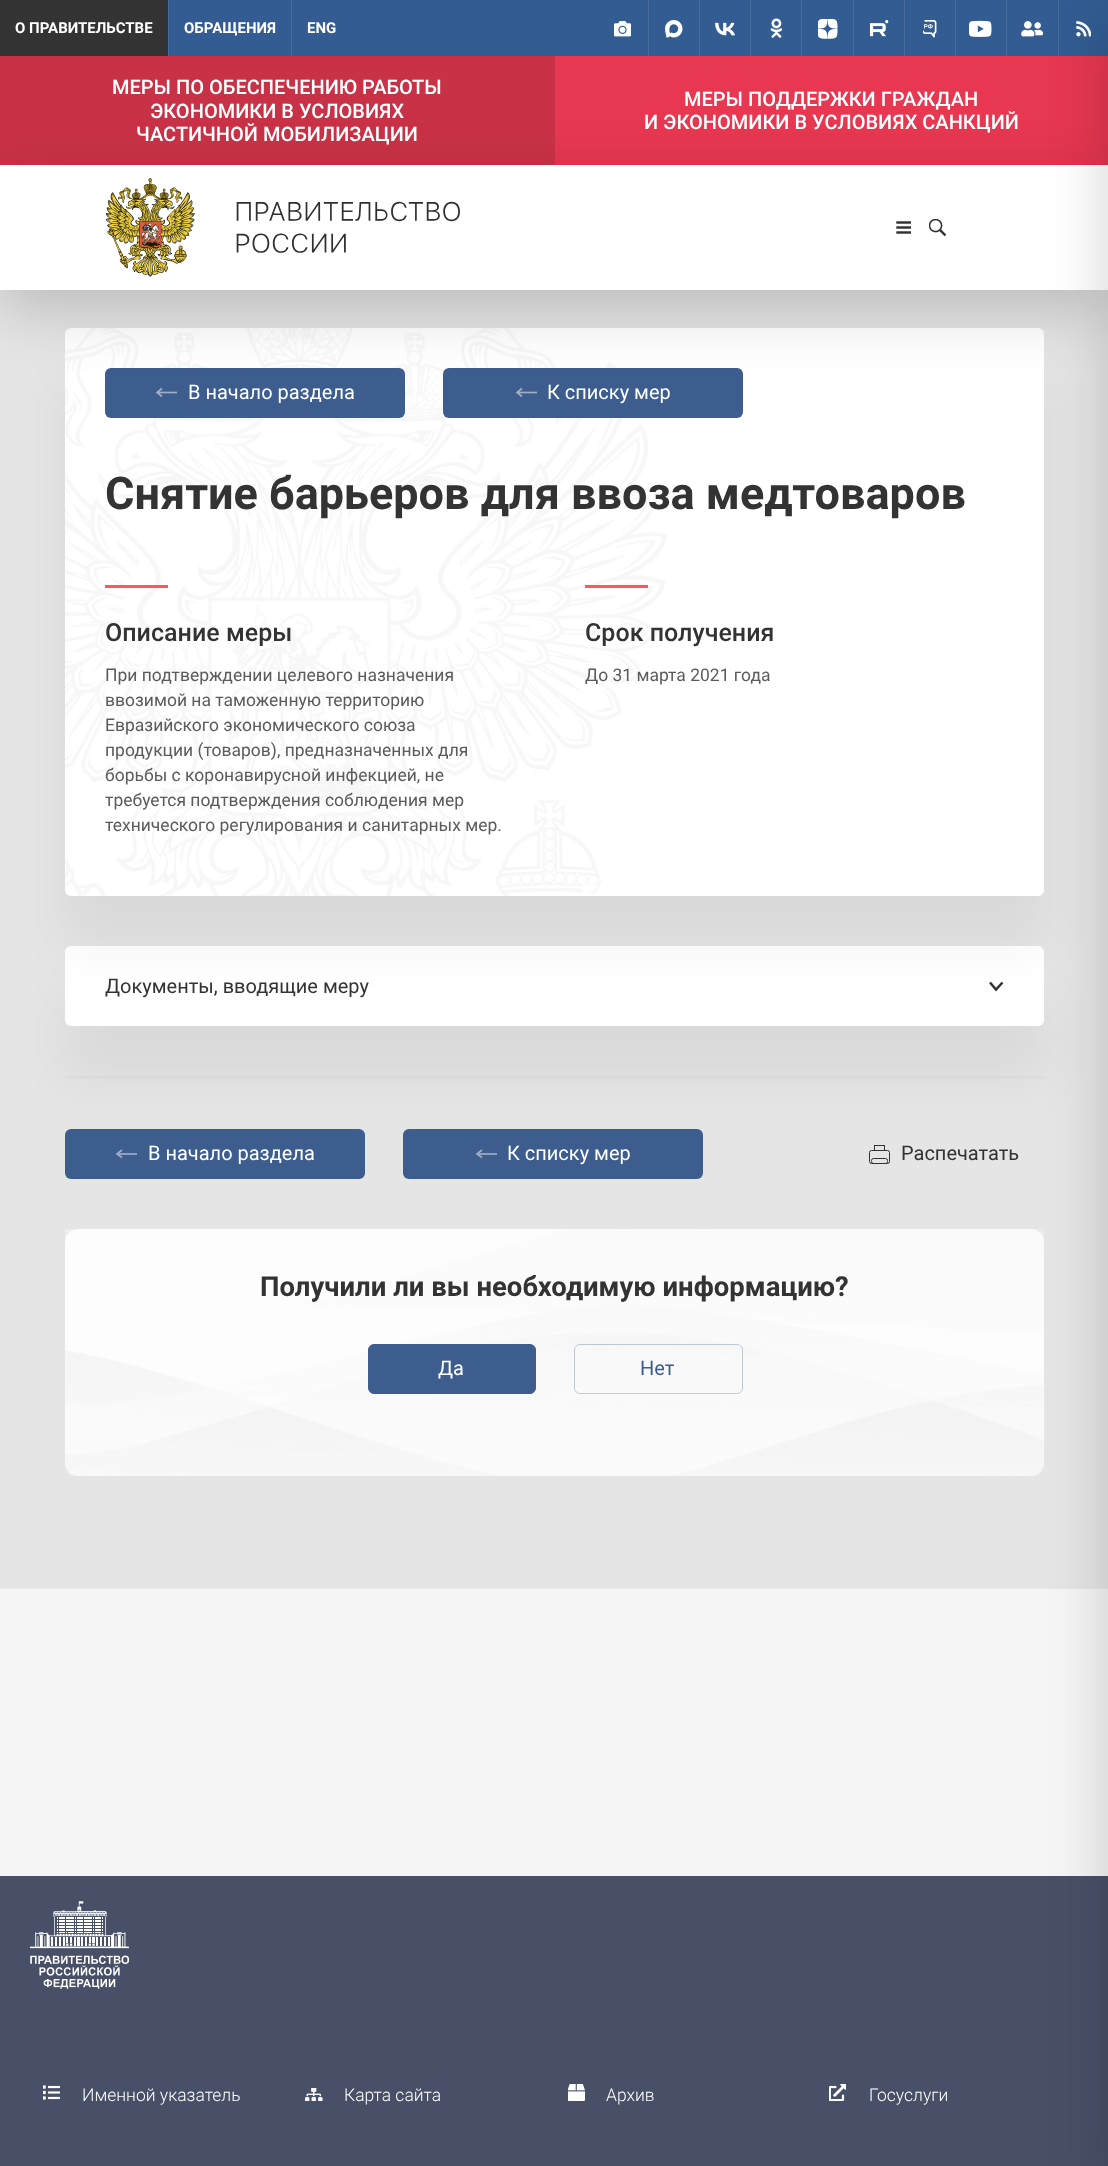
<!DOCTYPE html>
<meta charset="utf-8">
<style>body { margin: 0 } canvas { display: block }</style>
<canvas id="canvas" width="1108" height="2166"></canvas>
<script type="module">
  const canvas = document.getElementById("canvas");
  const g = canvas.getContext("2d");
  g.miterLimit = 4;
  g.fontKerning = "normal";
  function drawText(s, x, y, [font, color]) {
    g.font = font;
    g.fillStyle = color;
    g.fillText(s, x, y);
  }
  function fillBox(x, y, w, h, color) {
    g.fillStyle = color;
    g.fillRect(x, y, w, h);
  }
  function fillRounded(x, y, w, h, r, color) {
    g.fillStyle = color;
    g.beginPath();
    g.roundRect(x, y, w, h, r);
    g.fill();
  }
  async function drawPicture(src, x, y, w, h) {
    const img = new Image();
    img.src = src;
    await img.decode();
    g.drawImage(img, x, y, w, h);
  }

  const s1 = ["bold 15px Roboto", "#FFFFFF"];
  const s2 = ["500 20px Roboto", "#FFFFFF"];
  const s3 = ["20px Roboto", "#FFFFFF"];
  const s4 = ["bold 45px Roboto", "#333333"];
  const s5 = ["500 25px Roboto", "#333333"];
  const s6 = ["17.5px Roboto", "#5B5B5B"];
  const s7 = ["20px Roboto", "#333333"];
  const s8 = ["bold 27.5px Roboto", "#333333"];
  const s9 = ["20px Roboto", "#3C5D8E"];
  const s10 = ["300 17.5px Roboto", "#FFFFFF"];

  fillBox(0, 0, 1108, 2166, "#F5F5F5");
  fillBox(169, 0, 939, 56, "#325C92");
  fillBox(0, 56, 555, 109, "#C93246");
  fillBox(555, 56, 553, 109, "#E73751");
  fillBox(0, 290, 1108, 1299, "#E5E5E5");
  fillBox(65, 1076, 979, 3, "#E0E0E0");
  fillRounded(65, 1129, 300, 50, 6, "#3C5D8E");
  g.beginPath();
  g.moveTo(122, 1157.5);
  g.lineTo(117, 1154);
  g.lineTo(122, 1150);
  g.strokeStyle = "#9EAEC7";
  g.lineWidth = 1.7;
  g.stroke();
  fillRounded(403, 1129, 300, 50, 6, "#3C5D8E");
  g.beginPath();
  g.moveTo(482, 1157.5);
  g.lineTo(477, 1154);
  g.lineTo(482, 1150);
  g.stroke();
  g.beginPath();
  g.roundRect(869.5, 1150.5, 20, 13, 2);
  g.strokeStyle = "#333333";
  g.lineWidth = 1;
  g.stroke();
  g.strokeRect(874.5, 1145.5, 10, 5);
  g.fillStyle = "rgba(0, 0, 0, 0.05)";
  g.filter = "blur(25px)";
  g.beginPath();
  g.roundRect(65, 996, 979, 80, 6);
  g.fill();
  g.filter = "none";
  fillRounded(65, 946, 979, 80, 6, "#FFFFFF");
  g.beginPath();
  g.moveTo(990, 982.5);
  g.lineTo(996, 989.5);
  g.lineTo(1002.5, 982.5);
  g.lineWidth = 2.5;
  g.stroke();
  g.fillStyle = "rgba(0, 0, 0, 0.05)";
  g.filter = "blur(25px)";
  g.beginPath();
  g.roundRect(65, 378, 979, 568, 6);
  g.fill();
  g.filter = "none";
  fillRounded(65, 328, 979, 568, 6, "#FFFFFF");
  await drawPicture("pic14.png", 65, 328, 602, 568);
  fillRounded(105, 368, 300, 50, 6, "#3C5D8E");
  g.beginPath();
  g.moveTo(162, 396.5);
  g.lineTo(157, 392.5);
  g.lineTo(162, 388.5);
  g.strokeStyle = "#9EAEC7";
  g.lineWidth = 1.7;
  g.stroke();
  g.beginPath();
  g.moveTo(158.5, 392.5);
  g.lineTo(177, 392.5);
  g.strokeStyle = "rgba(255, 255, 255, 0.5)";
  g.stroke();
  fillRounded(443, 368, 300, 50, 6, "#3C5D8E");
  g.beginPath();
  g.moveTo(522, 396.5);
  g.lineTo(517, 392.5);
  g.lineTo(522, 388.5);
  g.strokeStyle = "#9EAEC7";
  g.stroke();
  g.beginPath();
  g.moveTo(518.5, 392.5);
  g.lineTo(537, 392.5);
  g.strokeStyle = "rgba(255, 255, 255, 0.5)";
  g.stroke();
  g.fillStyle = "rgba(0, 0, 0, 0.18)";
  g.filter = "blur(30px)";
  g.beginPath();
  g.rect(0, 185, 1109, 125);
  g.fill();
  g.filter = "none";
  fillBox(0, 165, 1108, 125, "#FFFFFF");
  await drawPicture("pic1.png", 105, 178, 355, 99);
  await drawPicture("pic2.png", 896, 221, 15, 13);
  await drawPicture("pic3.png", 929, 219, 17, 17);
  await drawPicture("pic12.png", 1021, 21, 23, 16);
  fillBox(1058, 0, 1, 56, "#476C9D");
  await drawPicture("pic13.png", 1076, 21, 15, 16);
  fillRounded(65, 1229, 979, 247, 13, "#FFFFFF");
  await drawPicture("pic15.png", 65, 1229, 979, 247);
  fillBox(0, 1876, 1108, 290, "#485068");
  g.fillStyle = "rgba(0, 0, 0, 0.18)";
  g.filter = "blur(30px)";
  g.beginPath();
  g.rect(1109, 20, 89, 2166);
  g.fill();
  g.filter = "none";
  fillBox(0, 0, 168, 56, "#333333");
  drawText("О ПРАВИТЕЛЬСТВЕ", 15, 33, s1);
  fillBox(168, 0, 1, 56, "#476C9D");
  drawText("ОБРАЩЕНИЯ", 184, 33, s1);
  fillBox(291, 0, 1, 56, "#476C9D");
  drawText("ENG", 307, 33, s1);
  await drawPicture("pic4.png", 614, 21, 17, 16);
  fillBox(648, 0, 1, 56, "#476C9D");
  await drawPicture("pic5.png", 665, 20, 18, 18);
  fillBox(699, 0, 1, 56, "#476C9D");
  await drawPicture("pic6.png", 715, 22, 20, 14);
  fillBox(750, 0, 1, 56, "#476C9D");
  await drawPicture("pic7.png", 770, 18, 13, 20);
  fillBox(801, 0, 1, 56, "#476C9D");
  await drawPicture("pic8.png", 818, 19, 20, 20);
  fillBox(853, 0, 1, 56, "#476C9D");
  await drawPicture("pic9.png", 869, 20, 20, 17);
  fillBox(904, 0, 1, 56, "#476C9D");
  await drawPicture("pic10.png", 923, 20, 14, 18);
  fillBox(955, 0, 1, 56, "#476C9D");
  await drawPicture("pic11.png", 969, 20, 23, 17);
  fillBox(1006, 0, 1, 56, "#476C9D");
  drawText("МЕРЫ ПО ОБЕСПЕЧЕНИЮ РАБОТЫ", 112, 94, s2);
  drawText("ЭКОНОМИКИ В УСЛОВИЯХ", 150, 118, s2);
  drawText("ЧАСТИЧНОЙ МОБИЛИЗАЦИИ", 136, 141, s2);
  drawText("МЕРЫ ПОДДЕРЖКИ ГРАЖДАН", 684, 106, s2);
  drawText("И ЭКОНОМИКИ В УСЛОВИЯХ САНКЦИЙ", 644, 129, s2);
  drawText("В начало раздела", 188, 399, s3);
  drawText("К списку мер", 547, 399, s3);
  drawText("Снятие барьеров для ввоза медтоваров", 105, 509, s4);
  fillBox(105, 585, 63, 3, "#FF5858");
  drawText("Описание меры", 105, 641, s5);
  drawText("При подтверждении целевого назначения", 105, 681, s6);
  drawText("ввозимой на таможенную территорию", 105, 706, s6);
  drawText("Евразийского экономического союза", 105, 731, s6);
  drawText("продукции (товаров), предназначенных для", 105, 756, s6);
  drawText("борьбы с коронавирусной инфекцией, не", 105, 781, s6);
  drawText("требуется подтверждения соблюдения мер", 105, 806, s6);
  drawText("технического регулирования и санитарных мер.", 105, 831, s6);
  fillBox(585, 585, 63, 3, "#FF5858");
  drawText("Срок получения", 585, 641, s5);
  drawText("До 31 марта 2021 года", 585, 681, s6);
  drawText("Документы, вводящие меру", 105, 993, s7);
  fillBox(119, 1153, 18, 2, "rgba(255, 255, 255, 0.42)");
  drawText("В начало раздела", 148, 1160, s3);
  fillBox(479, 1153, 18, 2, "rgba(255, 255, 255, 0.42)");
  drawText("К списку мер", 507, 1160, s3);
  g.beginPath();
  g.roundRect(871.5, 1158.5, 16, 5, 2);
  g.strokeStyle = "#333333";
  g.lineWidth = 1;
  g.stroke();
  drawText("Распечатать", 901, 1160, s7);
  drawText("Получили ли вы необходимую информацию?", 260, 1296, s8);
  g.fillStyle = "#3C5D8E";
  g.beginPath();
  g.roundRect(368.5, 1344.5, 167, 49, 5.5);
  g.fill();
  g.strokeStyle = "#3C5D8E";
  g.stroke();
  drawText("Да", 438, 1375, s3);
  g.beginPath();
  g.roundRect(574.5, 1344.5, 168, 49, 5.5);
  g.strokeStyle = "rgba(60, 93, 142, 0.3)";
  g.stroke();
  drawText("Нет", 640, 1375, s9);
  await drawPicture("pic16.png", 30, 1901, 99, 88);
  await drawPicture("pic17.png", 43, 2085, 17, 15);
  drawText("Именной указатель", 82, 2101, s10);
  await drawPicture("pic18.png", 305, 2088, 18, 13);
  drawText("Карта сайта", 344, 2101, s10);
  await drawPicture("pic19.png", 568, 2084, 17, 17);
  drawText("Архив", 606, 2101, s10);
  await drawPicture("pic20.png", 829, 2084, 17, 17);
  drawText("Госуслуги", 869, 2101, s10);
</script>
